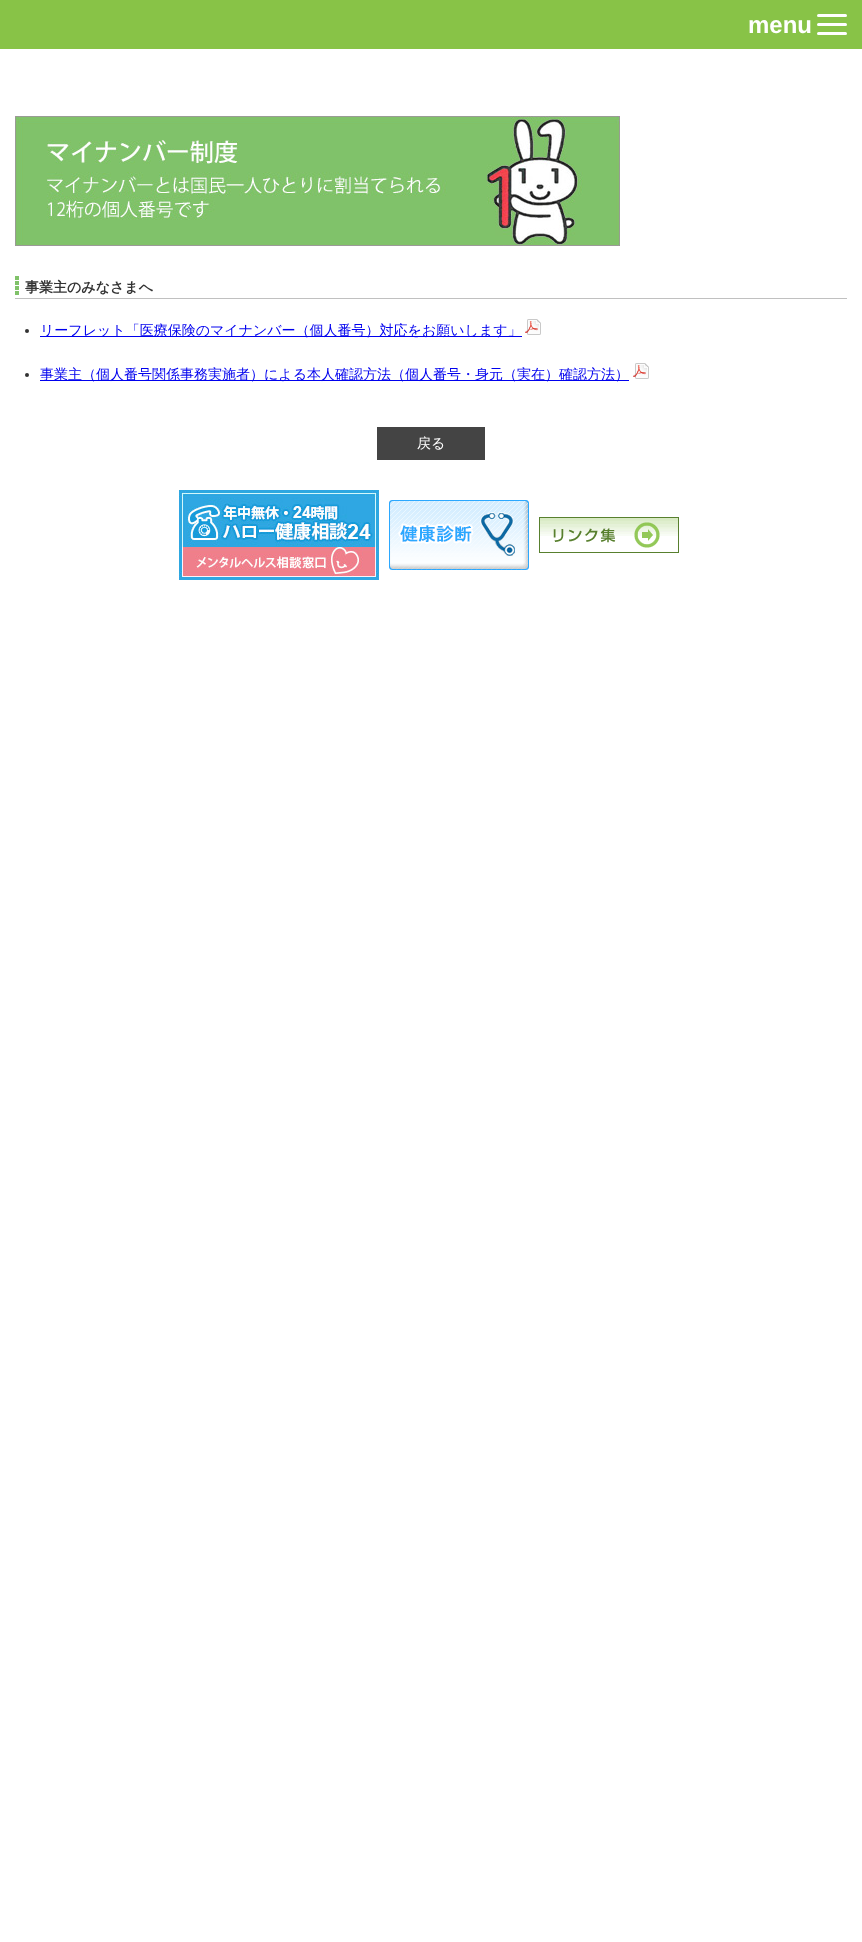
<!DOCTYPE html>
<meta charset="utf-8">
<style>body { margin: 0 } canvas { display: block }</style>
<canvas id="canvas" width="862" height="1942"></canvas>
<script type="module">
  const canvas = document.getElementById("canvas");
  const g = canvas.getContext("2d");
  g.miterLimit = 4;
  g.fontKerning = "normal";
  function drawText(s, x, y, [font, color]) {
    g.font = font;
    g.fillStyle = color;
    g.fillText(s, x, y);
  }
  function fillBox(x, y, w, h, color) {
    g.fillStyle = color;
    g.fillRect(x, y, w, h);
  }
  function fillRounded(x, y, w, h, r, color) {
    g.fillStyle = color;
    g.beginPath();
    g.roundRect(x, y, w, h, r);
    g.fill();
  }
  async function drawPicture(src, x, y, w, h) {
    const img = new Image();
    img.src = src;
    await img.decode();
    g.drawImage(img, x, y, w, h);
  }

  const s1 = ["bold 24px Liberation Sans", "#FFFFFF"];
  const s2 = ["bold 14px WenQuanYi Zen Hei", "#333333"];
  const s3 = ["500 14px WenQuanYi Zen Hei", "#0000EE"];
  const s4 = ["500 14px WenQuanYi Zen Hei", "#FFFFFF"];

  fillBox(0, 0, 862, 1942, "#FFFFFF");
  fillBox(0, 0, 862, 49, "#88C347");
  drawText("menu", 748, 33, s1);
  fillRounded(817, 14, 30, 3, 1.5, "#FFFFFF");
  fillRounded(817, 23, 30, 3, 1.5, "#FFFFFF");
  fillRounded(817, 32, 30, 3, 1.5, "#FFFFFF");
  await drawPicture("pic1.png", 15, 116, 605, 130);
  await drawPicture("pic2.png", 15, 276, 4, 19);
  fillBox(15, 298, 832, 1, "#C0C0C0");
  drawText("事業主のみなさまへ", 25, 292, s2);
  g.beginPath();
  g.arc(27, 331, 2, 0, Math.PI * 2);
  g.fill();
  fillBox(40, 336, 482, 1, "#0000EE");
  drawText("リーフレット「医療保険のマイナンバー（個人番号）対応をお願いします」", 40, 335, s3);
  await drawPicture("pic3.png", 525, 319, 16, 16);
  g.fillStyle = "#333333";
  g.beginPath();
  g.arc(27, 375, 2, 0, Math.PI * 2);
  g.fill();
  fillBox(40, 380, 589, 1, "#0000EE");
  drawText("事業主（個人番号関係事務実施者）による本人確認方法（個人番号・身元（実在）確認方法）", 40, 379, s3);
  await drawPicture("pic3.png", 633, 363, 16, 16);
  fillBox(377, 427, 108, 33, "#444444");
  drawText("戻る", 417, 448, s4);
  await drawPicture("pic4.png", 179, 490, 200, 90);
  await drawPicture("pic5.png", 389, 500, 140, 70);
  await drawPicture("pic6.png", 539, 517, 140, 36);
</script>
